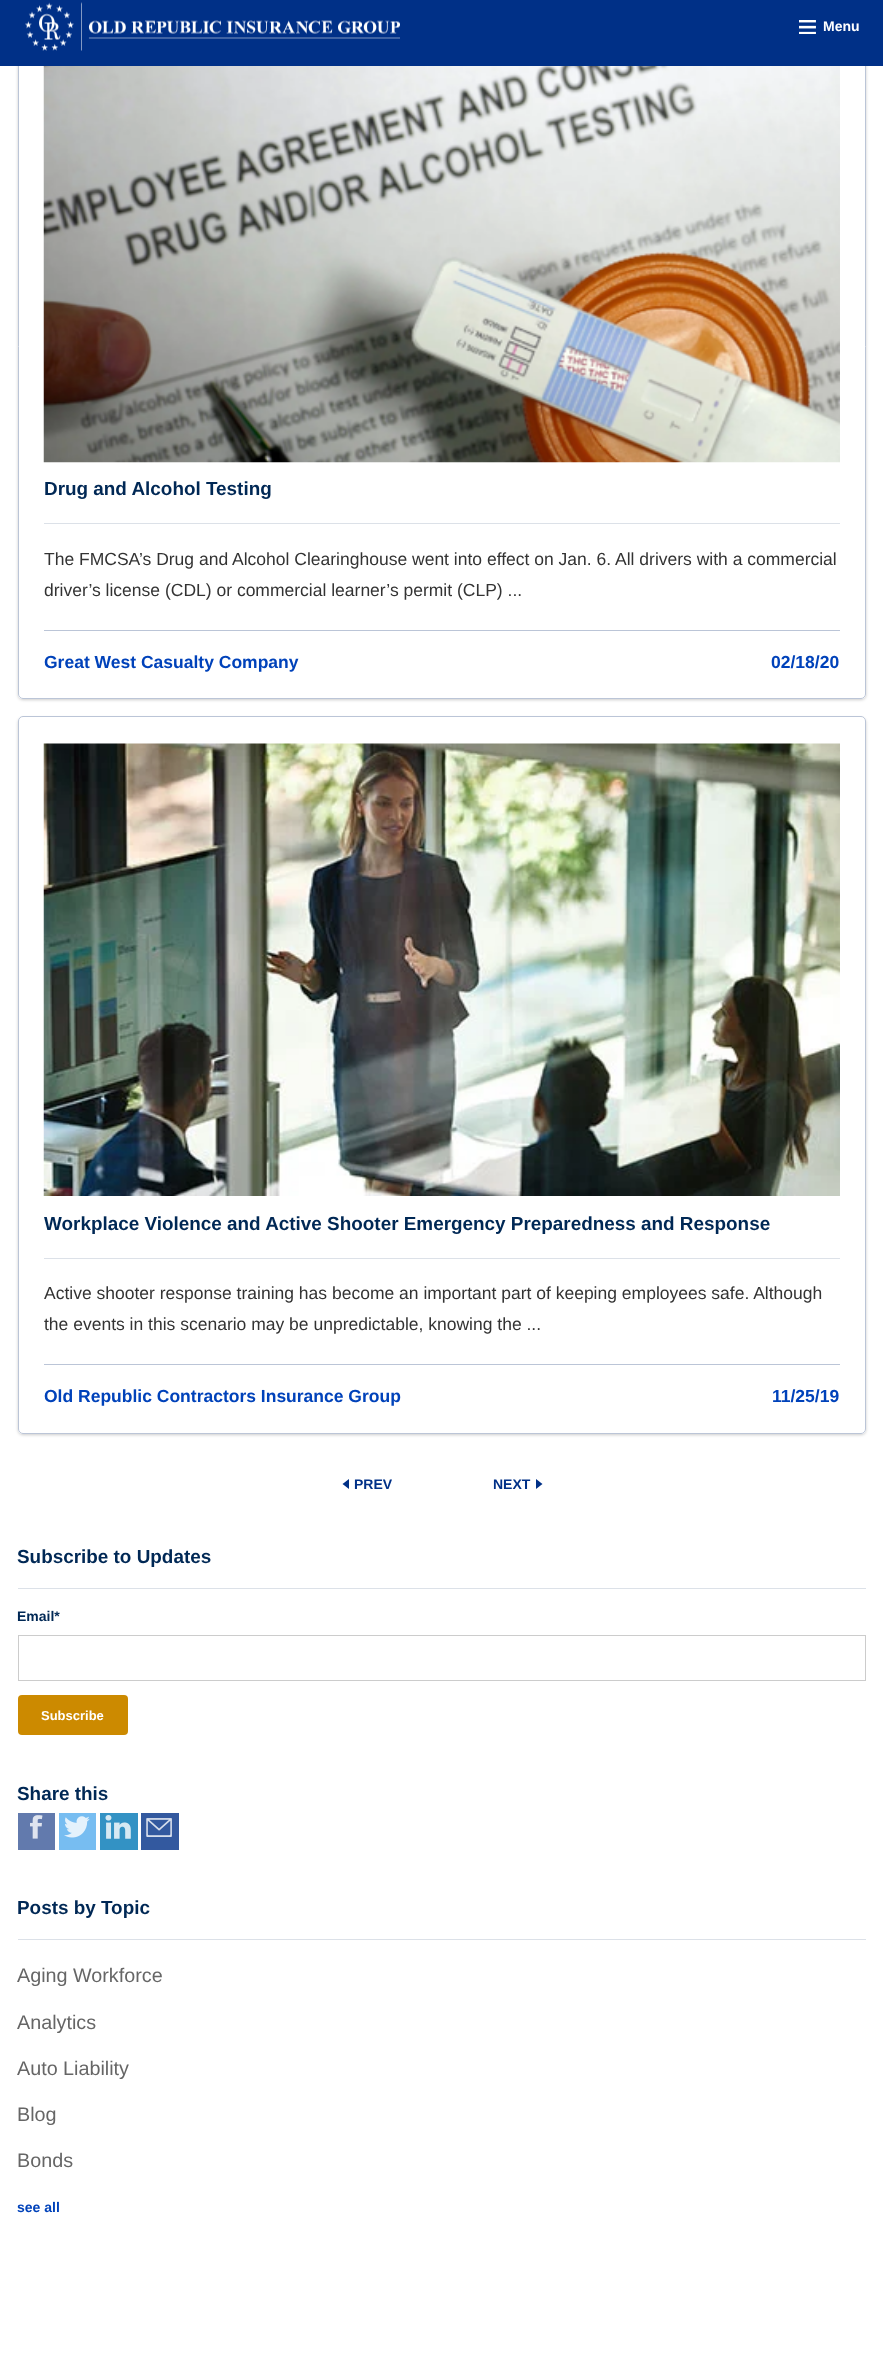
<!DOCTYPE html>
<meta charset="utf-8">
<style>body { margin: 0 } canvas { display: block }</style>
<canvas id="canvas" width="883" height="2363"></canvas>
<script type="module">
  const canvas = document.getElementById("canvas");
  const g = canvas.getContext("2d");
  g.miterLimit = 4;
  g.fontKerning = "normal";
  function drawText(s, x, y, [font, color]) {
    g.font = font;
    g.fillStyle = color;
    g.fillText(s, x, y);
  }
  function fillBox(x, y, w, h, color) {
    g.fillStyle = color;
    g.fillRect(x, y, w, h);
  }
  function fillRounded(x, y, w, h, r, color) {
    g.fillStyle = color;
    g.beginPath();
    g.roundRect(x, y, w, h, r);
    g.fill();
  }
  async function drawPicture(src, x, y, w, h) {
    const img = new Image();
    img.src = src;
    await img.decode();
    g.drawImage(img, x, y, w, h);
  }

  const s1 = ["bold 14px Liberation Sans", "#FFFFFF"];
  const s2 = ["bold 18.9px Liberation Sans", "#002855"];
  const s3 = ["17.5px Liberation Sans", "#333333"];
  const s4 = ["bold 17.5px Liberation Sans", "#0042BA"];
  const s5 = ["bold 14px Liberation Sans", "#003087"];
  const s6 = ["bold 14px Liberation Sans", "#002855"];
  const s7 = ["bold 13px Liberation Sans", "#FFFFFF"];
  const s8 = ["19.75px Liberation Sans", "#666666"];
  const s9 = ["bold 14px Liberation Sans", "#0042BA"];

  fillBox(0, 0, 883, 2363, "#FFFFFF");
  g.save();
  g.beginPath();
  g.moveTo(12, 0);
  g.lineTo(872, 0);
  g.lineTo(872, 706);
  g.lineTo(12, 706);
  g.closePath();
  g.moveTo(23, -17);
  g.lineTo(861, -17);
  g.bezierCurveTo(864, -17, 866, -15, 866, -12);
  g.lineTo(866, 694);
  g.bezierCurveTo(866, 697, 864, 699, 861, 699);
  g.lineTo(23, 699);
  g.bezierCurveTo(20, 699, 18, 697, 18, 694);
  g.lineTo(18, -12);
  g.bezierCurveTo(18, -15, 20, -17, 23, -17);
  g.closePath();
  g.clip("evenodd");
  g.fillStyle = "rgba(0, 0, 0, 0.2)";
  g.filter = "blur(1.5px)";
  g.beginPath();
  g.roundRect(18, -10, 848, 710, 5);
  g.fill();
  g.filter = "none";
  g.restore();
  g.beginPath();
  g.roundRect(18.5, -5.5, 847, 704, 4.5);
  g.strokeStyle = "#BBC5D7";
  g.stroke();
  fillBox(0, 0, 883, 66, "#003087");
  await drawPicture("pic1.png", 25, 2, 375, 49);
  await drawPicture("pic2.png", 799, 20, 17, 14);
  drawText("Menu", 823, 31, s1);
  await drawPicture("pic3.png", 43, 66, 797, 397);
  fillBox(44, 523, 796, 1, "#DCE1E8");
  drawText("Drug and Alcohol Testing", 44, 495, s2);
  drawText("The FMCSA’s Drug and Alcohol Clearinghouse went into effect on Jan. 6. All drivers with a commercial", 44, 565, s3);
  drawText("driver’s license (CDL) or commercial learner’s permit (CLP) ...", 44, 596, s3);
  fillBox(44, 630, 796, 1, "#BBC5D7");
  drawText("Great West Casualty Company", 44, 668, s4);
  drawText("02/18/20", 771, 668, s4);
  g.save();
  g.beginPath();
  g.moveTo(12, 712);
  g.lineTo(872, 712);
  g.lineTo(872, 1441);
  g.lineTo(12, 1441);
  g.closePath();
  g.moveTo(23, 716);
  g.lineTo(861, 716);
  g.bezierCurveTo(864, 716, 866, 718, 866, 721);
  g.lineTo(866, 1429);
  g.bezierCurveTo(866, 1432, 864, 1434, 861, 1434);
  g.lineTo(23, 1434);
  g.bezierCurveTo(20, 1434, 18, 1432, 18, 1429);
  g.lineTo(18, 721);
  g.bezierCurveTo(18, 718, 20, 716, 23, 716);
  g.closePath();
  g.clip("evenodd");
  g.fillStyle = "rgba(0, 0, 0, 0.2)";
  g.filter = "blur(1.5px)";
  g.beginPath();
  g.roundRect(18, 718, 848, 717, 5);
  g.fill();
  g.filter = "none";
  g.restore();
  g.beginPath();
  g.roundRect(18.5, 716.5, 847, 717, 4.5);
  g.stroke();
  await drawPicture("pic4.png", 43, 743, 797, 453);
  fillBox(44, 1258, 796, 1, "#DCE1E8");
  drawText("Workplace Violence and Active Shooter Emergency Preparedness and Response", 44, 1230, s2);
  drawText("Active shooter response training has become an important part of keeping employees safe. Although", 44, 1299, s3);
  drawText("the events in this scenario may be unpredictable, knowing the ...", 44, 1330, s3);
  fillBox(44, 1364, 796, 1, "#BBC5D7");
  drawText("Old Republic Contractors Insurance Group", 44, 1402, s4);
  drawText("11/25/19", 772, 1402, s4);
  g.fillStyle = "#003087";
  g.beginPath();
  g.moveTo(349, 1479);
  g.lineTo(349, 1489);
  g.lineTo(342.5, 1484);
  g.closePath();
  g.fill();
  drawText("PREV", 354, 1489, s5);
  drawText("NEXT", 493, 1489, s5);
  g.beginPath();
  g.moveTo(536, 1489);
  g.lineTo(536, 1479);
  g.lineTo(542.5, 1484);
  g.closePath();
  g.fill();
  fillBox(18, 1588, 848, 1, "#DCE1E8");
  drawText("Subscribe to Updates", 17, 1563, s2);
  drawText("Email*", 17, 1621, s6);
  g.strokeStyle = "#CCCCCC";
  g.strokeRect(18.5, 1635.5, 847, 45);
  fillRounded(18, 1695, 110, 40, 4, "#CC8A00");
  drawText("Subscribe", 41, 1720, s7);
  drawText("Share this", 17, 1800, s2);
  fillBox(18, 1813, 37, 37, "#627AAD");
  await drawPicture("pic5.png", 30, 1815, 13, 24);
  fillBox(59, 1813, 37, 37, "#77BDF1");
  await drawPicture("pic6.png", 64, 1816, 26, 22);
  fillBox(100, 1813, 38, 37, "#3392C4");
  await drawPicture("pic7.png", 105, 1815, 26, 24);
  fillBox(141, 1813, 38, 37, "#33599F");
  await drawPicture("pic8.png", 146, 1818, 26, 19);
  fillBox(18, 1939, 848, 1, "#DCE1E8");
  drawText("Posts by Topic", 17, 1914, s2);
  drawText("Aging Workforce", 17, 1982, s8);
  drawText("Analytics", 17, 2029, s8);
  drawText("Auto Liability", 17, 2075, s8);
  drawText("Blog", 17, 2121, s8);
  drawText("Bonds", 17, 2167, s8);
  drawText("see all", 17, 2212, s9);
</script>
